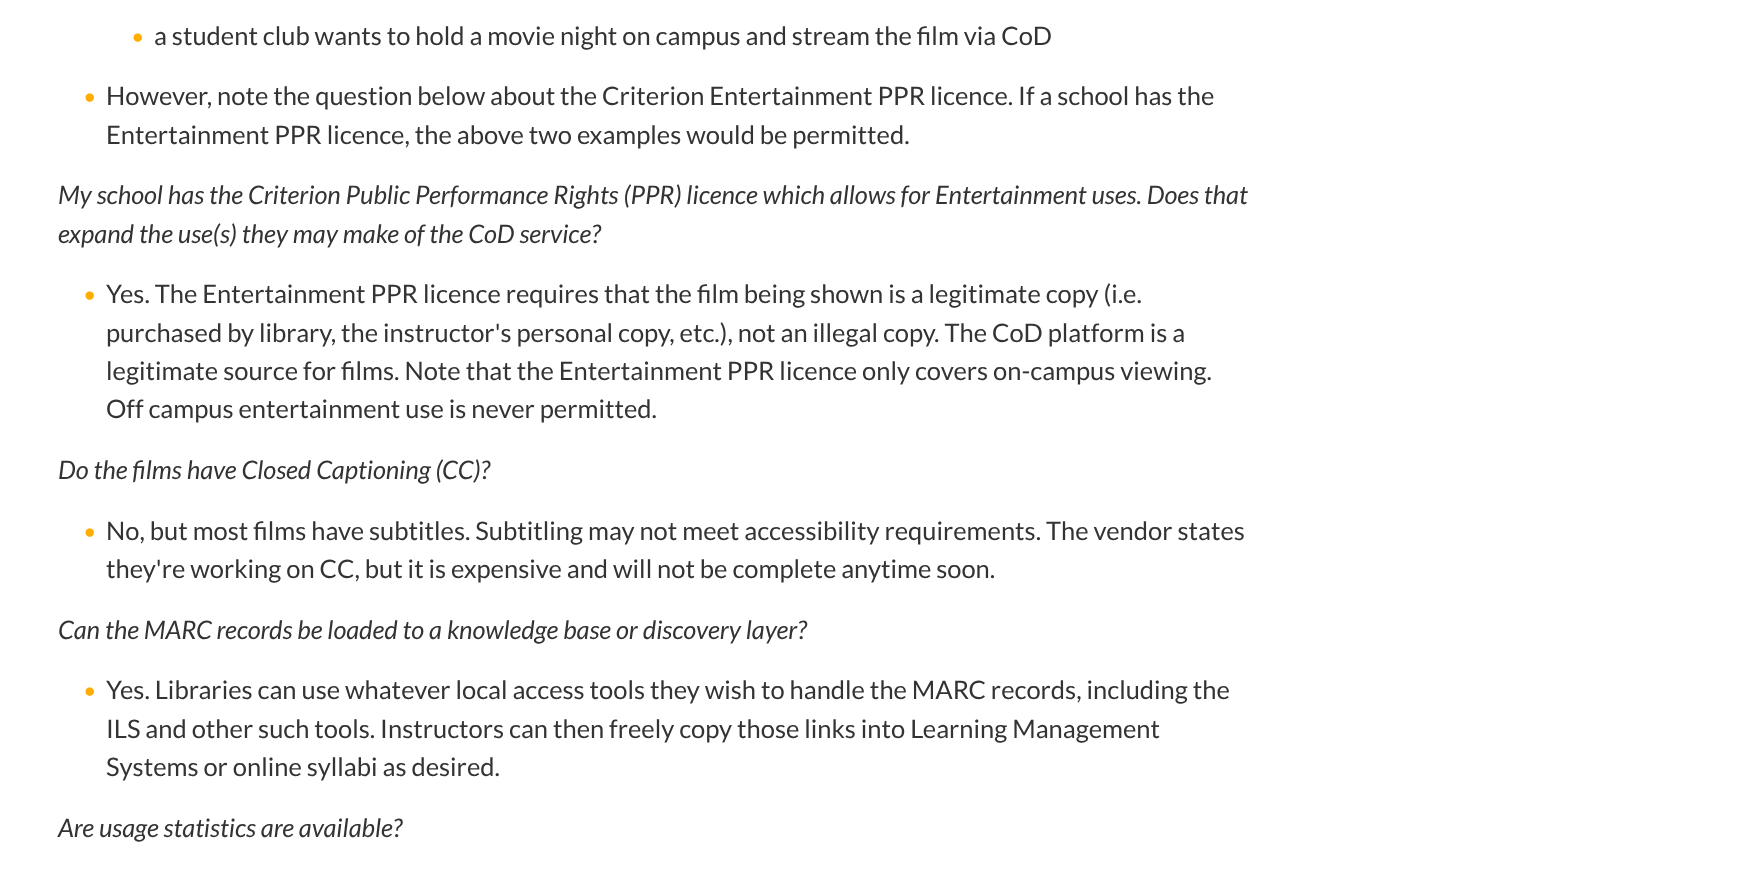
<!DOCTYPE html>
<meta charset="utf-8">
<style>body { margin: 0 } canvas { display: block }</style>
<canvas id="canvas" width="1746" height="878"></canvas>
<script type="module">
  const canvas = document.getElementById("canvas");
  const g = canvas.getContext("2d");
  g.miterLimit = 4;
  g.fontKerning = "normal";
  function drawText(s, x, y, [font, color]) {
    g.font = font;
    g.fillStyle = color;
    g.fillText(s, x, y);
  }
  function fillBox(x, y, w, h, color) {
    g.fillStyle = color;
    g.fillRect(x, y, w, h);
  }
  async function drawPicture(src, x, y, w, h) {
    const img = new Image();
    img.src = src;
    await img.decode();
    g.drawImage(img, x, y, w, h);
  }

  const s1 = ["25.5px Lato", "#333333"];
  const s2 = ["italic 25.5px Lato", "#333333"];

  fillBox(0, 0, 1746, 878, "#FFFFFF");
  await drawPicture("pic1.png", 133, 33, 9, 9);
  drawText("a student club wants to hold a movie night on campus and stream the film via CoD", 154, 45, s1);
  await drawPicture("pic1.png", 85, 93, 9, 9);
  drawText("However, note the question below about the Criterion Entertainment PPR licence. If a school has the", 106, 105, s1);
  drawText("Entertainment PPR licence, the above two examples would be permitted.", 106, 144, s1);
  drawText("My school has the Criterion Public Performance Rights (PPR) licence which allows for Entertainment uses. Does that", 58, 204, s2);
  drawText("expand the use(s) they may make of the CoD service?", 58, 243, s2);
  await drawPicture("pic1.png", 85, 291, 9, 9);
  drawText("Yes. The Entertainment PPR licence requires that the film being shown is a legitimate copy (i.e.", 106, 303, s1);
  drawText("purchased by library, the instructor's personal copy, etc.), not an illegal copy. The CoD platform is a", 106, 342, s1);
  drawText("legitimate source for films. Note that the Entertainment PPR licence only covers on-campus viewing.", 106, 380, s1);
  drawText("Off campus entertainment use is never permitted.", 106, 418, s1);
  drawText("Do the films have Closed Captioning (CC)?", 58, 479, s2);
  await drawPicture("pic1.png", 85, 528, 9, 9);
  drawText("No, but most films have subtitles. Subtitling may not meet accessibility requirements. The vendor states", 106, 540, s1);
  drawText("they're working on CC, but it is expensive and will not be complete anytime soon.", 106, 578, s1);
  drawText("Can the MARC records be loaded to a knowledge base or discovery layer?", 58, 639, s2);
  await drawPicture("pic1.png", 85, 687, 9, 9);
  drawText("Yes. Libraries can use whatever local access tools they wish to handle the MARC records, including the", 106, 699, s1);
  drawText("ILS and other such tools. Instructors can then freely copy those links into Learning Management", 106, 738, s1);
  drawText("Systems or online syllabi as desired.", 106, 776, s1);
  drawText("Are usage statistics are available?", 58, 837, s2);
</script>
